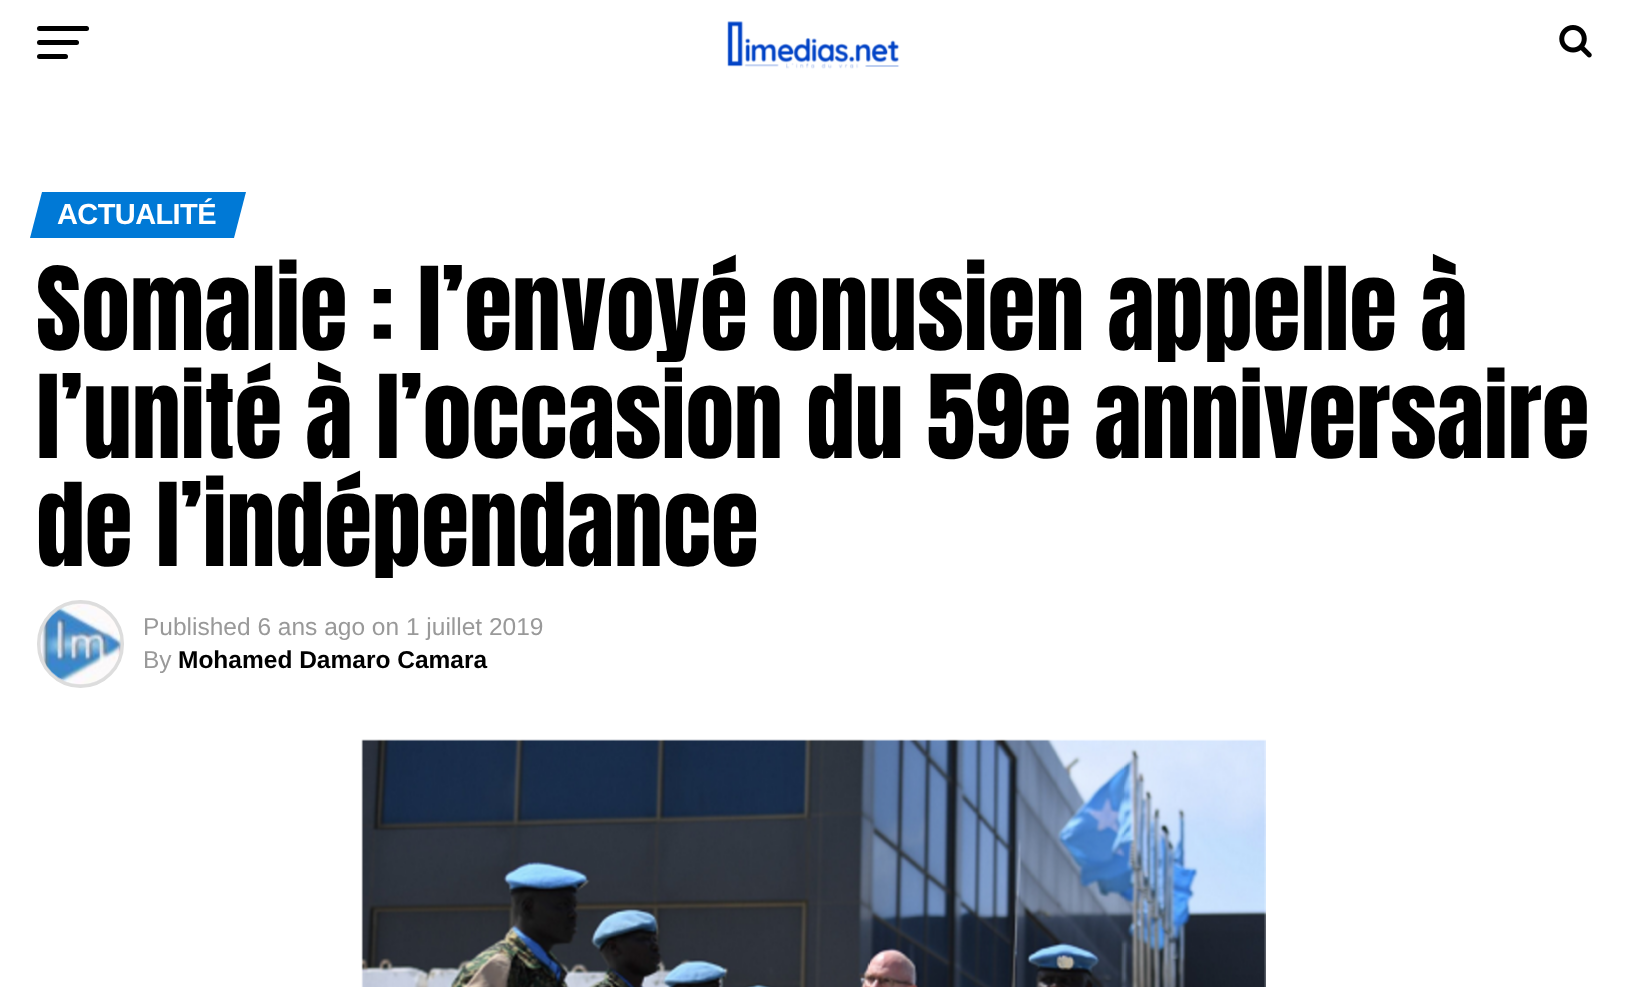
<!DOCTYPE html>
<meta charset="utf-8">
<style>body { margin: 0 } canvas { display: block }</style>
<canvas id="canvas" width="1627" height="987"></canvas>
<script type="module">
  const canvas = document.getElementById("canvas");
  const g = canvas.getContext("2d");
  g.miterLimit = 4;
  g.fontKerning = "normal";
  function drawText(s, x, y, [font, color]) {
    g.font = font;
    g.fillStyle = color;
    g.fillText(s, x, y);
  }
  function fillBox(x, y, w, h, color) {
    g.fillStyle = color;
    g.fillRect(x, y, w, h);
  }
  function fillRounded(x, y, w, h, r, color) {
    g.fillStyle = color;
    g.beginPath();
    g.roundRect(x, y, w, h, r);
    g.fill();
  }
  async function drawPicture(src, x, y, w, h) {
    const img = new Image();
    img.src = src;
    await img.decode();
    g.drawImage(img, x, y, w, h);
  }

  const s1 = ["bold 29px Liberation Sans", "#FFFFFF"];
  const s2 = ["98px Anton", "#000000"];
  const s3 = ["24.5px Liberation Sans", "#999999"];
  const s4 = ["bold 24.5px Liberation Sans", "#000000"];

  fillBox(0, 0, 1627, 987, "#FFFFFF");
  fillRounded(37, 26, 52, 5, 2.5, "#000000");
  fillRounded(37, 40, 42, 5, 2.5, "#000000");
  fillRounded(37, 54, 31, 5, 2.5, "#000000");
  await drawPicture("pic1.png", 727, 21, 173, 48);
  await drawPicture("pic2.png", 1559, 25, 33, 33);
  g.fillStyle = "#0079D6";
  g.beginPath();
  g.moveTo(42, 192);
  g.lineTo(246, 192);
  g.lineTo(234, 238);
  g.lineTo(30, 238);
  g.closePath();
  g.fill();
  g.letterSpacing = "-0.6px";
  drawText("ACTUALITÉ", 57, 224, s1);
  g.letterSpacing = "0px";
  drawText("Somalie : l’envoyé onusien appelle à", 36, 350, s2);
  drawText("l’unité à l’occasion du 59e anniversaire", 36, 458, s2);
  drawText("de l’indépendance", 36, 566, s2);
  g.beginPath();
  g.roundRect(39, 602, 83, 84, 41.5);
  g.strokeStyle = "#DDDDDD";
  g.lineWidth = 4;
  g.stroke();
  await drawPicture("pic3.png", 40, 603, 81, 82);
  drawText("Published 6 ans ago on 1 juillet 2019", 143, 635, s3);
  drawText("By", 143, 668, s3);
  drawText("Mohamed Damaro Camara", 178, 668, s4);
  await drawPicture("pic4.png", 361, 739, 905, 248);
</script>
